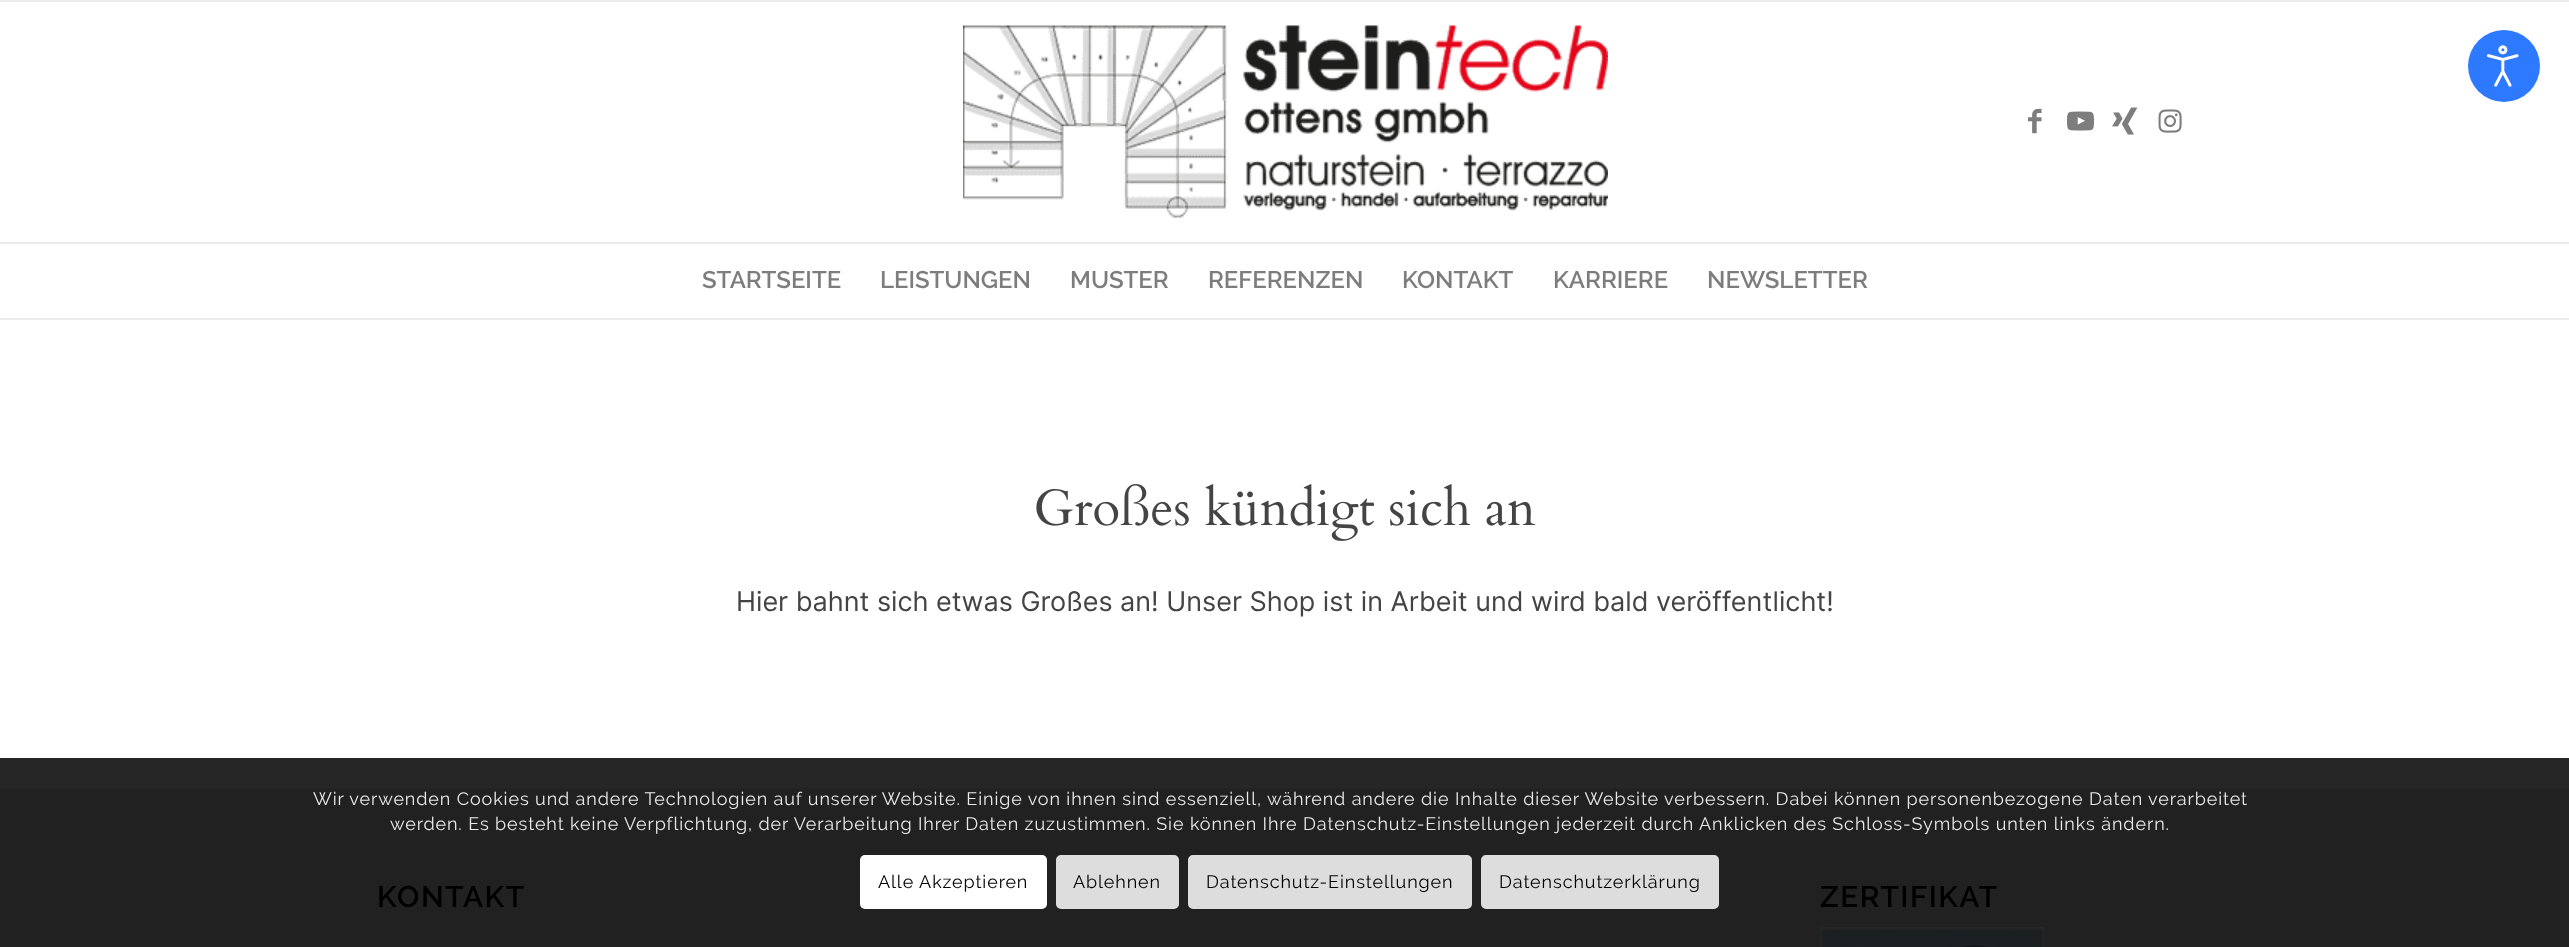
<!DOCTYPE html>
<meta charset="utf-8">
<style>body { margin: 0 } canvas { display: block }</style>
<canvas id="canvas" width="2569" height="947"></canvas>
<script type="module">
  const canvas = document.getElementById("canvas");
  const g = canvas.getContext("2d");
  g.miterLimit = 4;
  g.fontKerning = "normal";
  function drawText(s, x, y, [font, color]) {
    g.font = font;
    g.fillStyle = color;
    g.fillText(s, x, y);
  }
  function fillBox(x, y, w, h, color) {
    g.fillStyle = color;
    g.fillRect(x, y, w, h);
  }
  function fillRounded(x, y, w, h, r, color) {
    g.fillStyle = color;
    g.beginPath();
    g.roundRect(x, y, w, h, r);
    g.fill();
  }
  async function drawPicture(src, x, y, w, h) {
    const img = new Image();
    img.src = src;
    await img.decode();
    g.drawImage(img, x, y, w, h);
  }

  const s1 = ["600 24px Raleway", "#7D7D7D"];
  const s2 = ["27px Inter", "#444444"];
  const s3 = ["600 29.75px Raleway", "#000000"];
  const s4 = ["18px Raleway", "#E9E9E9"];
  const s5 = ["18px Raleway", "#000000"];

  fillBox(0, 0, 2569, 947, "#FFFFFF");
  fillBox(0, 758, 2569, 30, "#262626");
  g.fillStyle = "#2D79FF";
  g.beginPath();
  g.arc(2504, 66, 36, 0, Math.PI * 2);
  g.fill();
  await drawPicture("pic1.png", 2486, 45, 33, 42);
  fillBox(0, 0, 2569, 2, "#EBEBEB");
  fillBox(0, 318, 2569, 2, "#EBEBEB");
  await drawPicture("pic2.png", 963, 25, 645, 193);
  await drawPicture("pic3.png", 2028, 108, 14, 26);
  await drawPicture("pic4.png", 2067, 111, 27, 20);
  await drawPicture("pic5.png", 2112, 107, 26, 28);
  await drawPicture("pic6.png", 2158, 109, 24, 24);
  fillBox(0, 242, 2569, 2, "#EBEBEB");
  drawText("STARTSEITE", 702, 288, s1);
  drawText("LEISTUNGEN", 880, 288, s1);
  drawText("MUSTER", 1070, 288, s1);
  drawText("REFERENZEN", 1208, 288, s1);
  drawText("KONTAKT", 1402, 288, s1);
  drawText("KARRIERE", 1553, 288, s1);
  drawText("NEWSLETTER", 1707, 288, s1);
  await drawPicture("pic7.png", 1036, 484, 500, 57);
  drawText("Hier bahnt sich etwas Großes an! Unser Shop ist in Arbeit und wird bald veröffentlicht!", 736, 611, s2);
  fillBox(0, 790, 2569, 157, "#212121");
  fillBox(0, 788, 2569, 2, "#232323");
  g.letterSpacing = "1.5px";
  drawText("KONTAKT", 377, 907, s3);
  drawText("ZERTIFIKAT", 1820, 907, s3);
  await drawPicture("pic8.png", 1819, 927, 226, 20);
  g.letterSpacing = "0.9px";
  drawText("Wir verwenden Cookies und andere Technologien auf unserer Website. Einige von ihnen sind essenziell, während andere die Inhalte dieser Website verbessern. Dabei können personenbezogene Daten verarbeitet", 313, 805, s4);
  drawText("werden. Es besteht keine Verpflichtung, der Verarbeitung Ihrer Daten zuzustimmen. Sie können Ihre Datenschutz-Einstellungen jederzeit durch Anklicken des Schloss-Symbols unten links ändern.", 390, 830, s4);
  fillRounded(860, 855, 187, 54, 5, "#FFFFFF");
  drawText("Alle Akzeptieren", 878, 888, s5);
  g.fillStyle = "#DDDDDD";
  g.beginPath();
  g.roundRect(1057.5, 856.5, 120, 51, 3.5);
  g.fill();
  g.strokeStyle = "#DDDDDD";
  g.lineWidth = 3;
  g.stroke();
  drawText("Ablehnen", 1073, 888, s5);
  g.fillStyle = "#DDDDDD";
  g.beginPath();
  g.roundRect(1189.5, 856.5, 281, 51, 3.5);
  g.fill();
  g.stroke();
  drawText("Datenschutz-Einstellungen", 1206, 888, s5);
  g.fillStyle = "#DDDDDD";
  g.beginPath();
  g.roundRect(1482.5, 856.5, 235, 51, 3.5);
  g.fill();
  g.stroke();
  drawText("Datenschutzerklärung", 1499, 888, s5);
</script>
